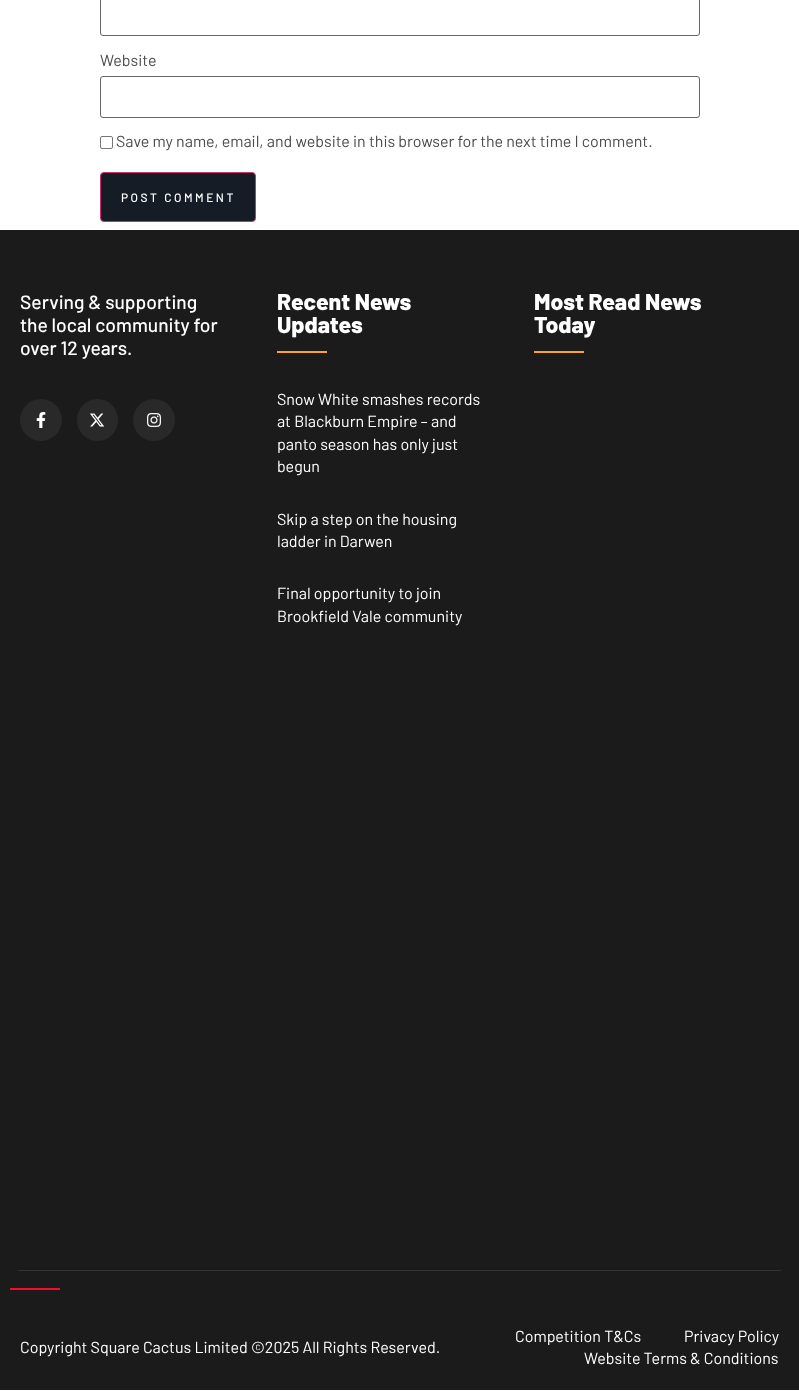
<!DOCTYPE html>
<meta charset="utf-8">
<style>body { margin: 0 } canvas { display: block }</style>
<canvas id="canvas" width="799" height="1395"></canvas>
<script type="module">
  const canvas = document.getElementById("canvas");
  const g = canvas.getContext("2d");
  g.miterLimit = 4;
  g.fontKerning = "normal";
  function drawText(s, x, y, [font, color]) {
    g.font = font;
    g.fillStyle = color;
    g.fillText(s, x, y);
  }
  function fillBox(x, y, w, h, color) {
    g.fillStyle = color;
    g.fillRect(x, y, w, h);
  }
  function fillRounded(x, y, w, h, r, color) {
    g.fillStyle = color;
    g.beginPath();
    g.roundRect(x, y, w, h, r);
    g.fill();
  }
  async function drawPicture(src, x, y, w, h) {
    const img = new Image();
    img.src = src;
    await img.decode();
    g.drawImage(img, x, y, w, h);
  }

  const s1 = ["16px Barlow", "#4C4C4C"];
  const s2 = ["500 12px Barlow", "#FFFFFF"];
  const s3 = ["500 19.25px Barlow", "#FFFFFF"];
  const s4 = ["800 23px Barlow", "#FFFFFF"];
  const s5 = ["16px Barlow", "#FFFFFF"];

  fillBox(0, 0, 799, 1395, "#FFFFFF");
  g.beginPath();
  g.roundRect(100.5, -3.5, 599, 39, 2.5);
  g.strokeStyle = "#666666";
  g.stroke();
  drawText("Website", 100, 66, s1);
  g.beginPath();
  g.roundRect(100.5, 76.5, 599, 41, 2.5);
  g.stroke();
  g.beginPath();
  g.roundRect(100.5, 136.5, 12, 12, 1.5);
  g.strokeStyle = "#767676";
  g.stroke();
  drawText("Save my name, email, and website in this browser for the next time I comment.", 116, 147, s1);
  g.fillStyle = "#161C26";
  g.beginPath();
  g.roundRect(100.5, 172.5, 155, 49, 3.5);
  g.fill();
  g.strokeStyle = "#CC3366";
  g.stroke();
  g.letterSpacing = "2.5px";
  drawText("POST COMMENT", 121, 202, s2);
  fillBox(0, 230, 799, 1160, "#1B1B1B");
  g.letterSpacing = "0px";
  drawText("Serving & supporting", 20, 309, s3);
  drawText("the local community for", 20, 332, s3);
  drawText("over 12 years.", 20, 355, s3);
  g.fillStyle = "#292929";
  g.beginPath();
  g.arc(41, 420, 21, 0, Math.PI * 2);
  g.fill();
  await drawPicture("pic1.png", 36, 412, 10, 16);
  fillRounded(77, 399, 41, 42, 20.5, "#292929");
  await drawPicture("pic2.png", 90, 413, 15, 14);
  g.beginPath();
  g.arc(154, 420, 21, 0, Math.PI * 2);
  g.fill();
  await drawPicture("pic3.png", 147, 413, 14, 14);
  drawText("Recent News", 277, 310, s4);
  drawText("Updates", 277, 333, s4);
  fillBox(277, 351, 50, 2, "#FCA424");
  drawText("Snow White smashes records", 277, 405, s5);
  drawText("at Blackburn Empire – and", 277, 427, s5);
  drawText("panto season has only just", 277, 450, s5);
  drawText("begun", 277, 472, s5);
  drawText("Skip a step on the housing", 277, 525, s5);
  drawText("ladder in Darwen", 277, 547, s5);
  drawText("Final opportunity to join", 277, 599, s5);
  drawText("Brookfield Vale community", 277, 622, s5);
  drawText("Most Read News", 534, 310, s4);
  drawText("Today", 534, 333, s4);
  fillBox(534, 351, 50, 2, "#FCA424");
  fillBox(18, 1270, 763, 1, "#323336");
  fillBox(10, 1288, 50, 2, "#F70D28");
  drawText("Copyright Square Cactus Limited ©2025 All Rights Reserved.", 20, 1353, s5);
  drawText("Competition T&Cs", 515, 1342, s5);
  drawText("Privacy Policy", 684, 1342, s5);
  drawText("Website Terms & Conditions", 584, 1364, s5);
</script>
